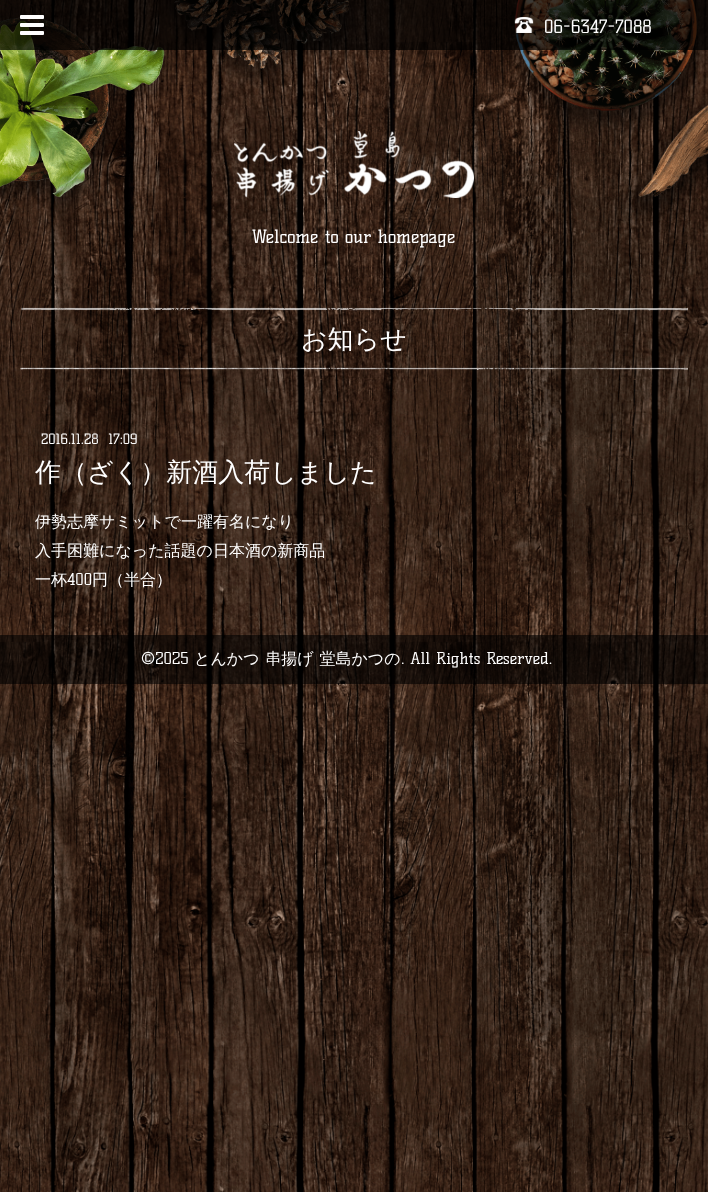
<!DOCTYPE html>
<meta charset="utf-8">
<style>body { margin: 0 } canvas { display: block }</style>
<canvas id="canvas" width="708" height="1192"></canvas>
<script type="module">
  const canvas = document.getElementById("canvas");
  const g = canvas.getContext("2d");
  g.miterLimit = 4;
  g.fontKerning = "normal";
  function drawText(s, x, y, [font, color]) {
    g.font = font;
    g.fillStyle = color;
    g.fillText(s, x, y);
  }
  function fillBox(x, y, w, h, color) {
    g.fillStyle = color;
    g.fillRect(x, y, w, h);
  }
  async function drawPicture(src, x, y, w, h) {
    const img = new Image();
    img.src = src;
    await img.decode();
    g.drawImage(img, x, y, w, h);
  }

  const s1 = ["18px Kelly Slab", "#FFFFFF"];
  const s2 = ["500 26px WenQuanYi Zen Hei", "#FFFFFF"];
  const s3 = ["14px Kelly Slab", "#FFFFFF"];
  const s4 = ["500 16px WenQuanYi Zen Hei", "#FFFFFF"];
  const s5 = ["16px Kelly Slab", "#FFFFFF"];

  fillBox(0, 0, 708, 1192, "#FFFFFF");
  await drawPicture("pic1.png", 0, 0, 708, 1192);
  await drawPicture("pic2.png", 0, 0, 708, 219);
  fillBox(0, 0, 708, 50, "rgba(0, 0, 0, 0.7)");
  await drawPicture("pic3.png", 20, 15, 24, 20);
  await drawPicture("pic4.png", 514, 17, 20, 16);
  drawText("06-6347-7088", 544, 33, s1);
  await drawPicture("pic5.png", 234, 131, 240, 67);
  drawText("Welcome to our homepage", 252, 243, s1);
  await drawPicture("pic6.png", 20, 307, 668, 4);
  drawText("お知らせ", 301, 348, s2);
  await drawPicture("pic7.png", 20, 367, 668, 3);
  drawText("2016.11.28  17:09", 41, 444, s3);
  drawText("作（ざく）新酒入荷しました", 35, 481, s2);
  drawText("伊勢志摩サミットで一躍有名になり", 35, 527, s4);
  drawText("入手困難になった話題の日本酒の新商品", 35, 556, s4);
  drawText("一杯", 35, 585, s4);
  drawText("400", 67, 585, s5);
  drawText("円（半合）", 92, 585, s4);
  fillBox(0, 635, 708, 49, "rgba(0, 0, 0, 0.6)");
  drawText("©2025", 141, 664, s5);
  g.wordSpacing = "1px";
  drawText("とんかつ 串揚げ 堂島かつの", 194, 664, s4);
  g.wordSpacing = "0px";
  drawText(". All Rights Reserved.", 401, 664, s5);
</script>
